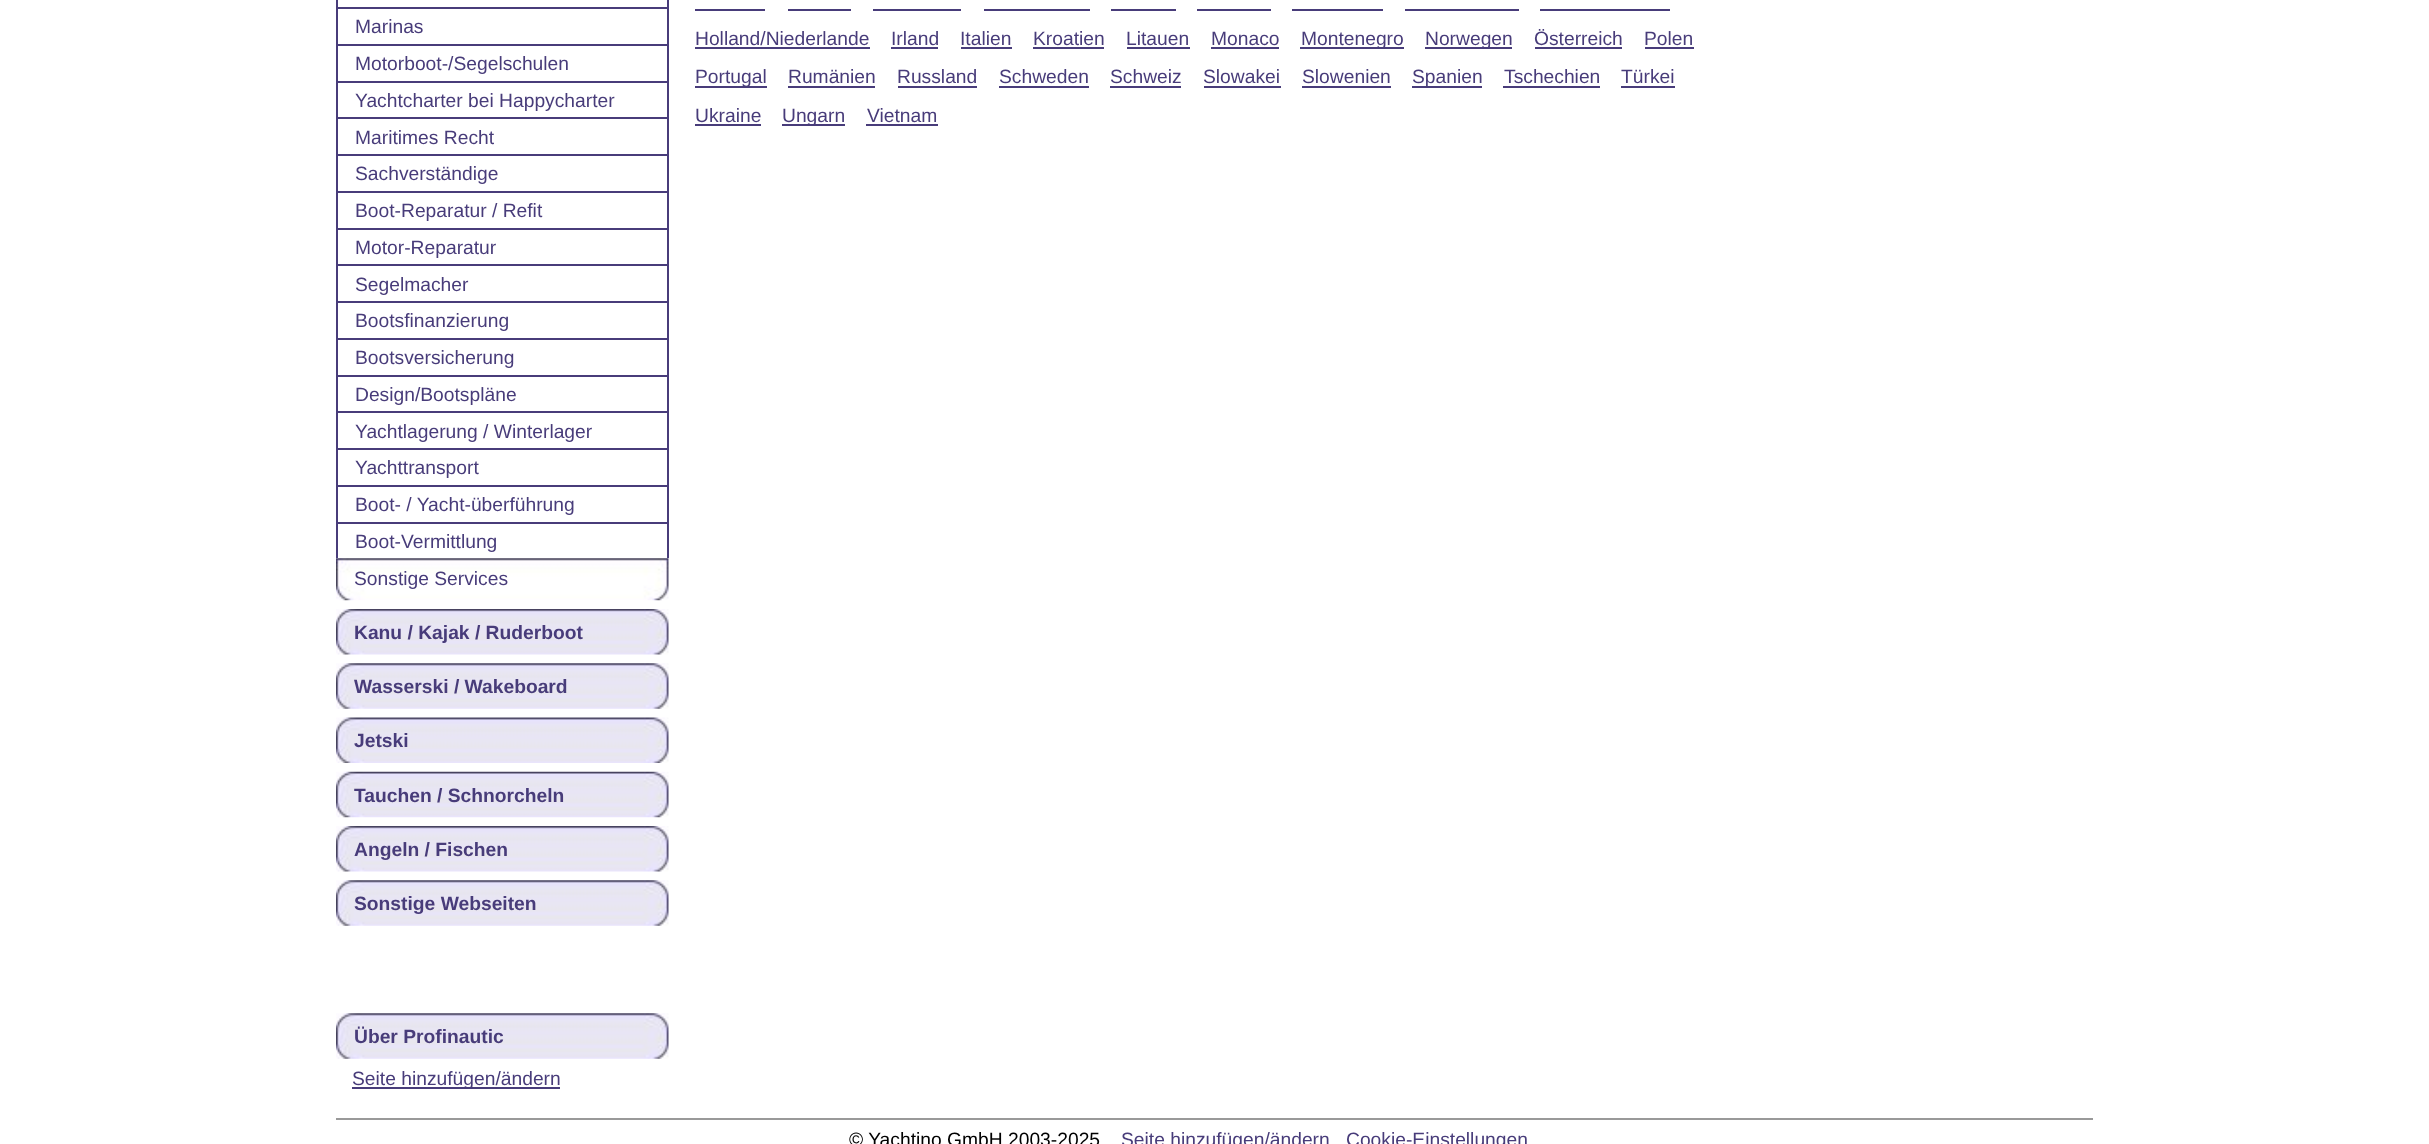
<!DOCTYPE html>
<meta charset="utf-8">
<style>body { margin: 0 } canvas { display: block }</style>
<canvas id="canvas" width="2429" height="1144"></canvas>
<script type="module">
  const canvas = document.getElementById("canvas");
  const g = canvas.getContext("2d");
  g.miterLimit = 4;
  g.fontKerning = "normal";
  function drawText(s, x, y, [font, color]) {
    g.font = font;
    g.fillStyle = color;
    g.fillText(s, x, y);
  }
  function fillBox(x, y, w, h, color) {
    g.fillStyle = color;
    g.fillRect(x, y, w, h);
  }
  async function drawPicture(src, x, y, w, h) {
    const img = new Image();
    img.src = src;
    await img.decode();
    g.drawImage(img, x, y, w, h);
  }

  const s1 = ["19.25px Liberation Sans", "#483C7A"];
  const s2 = ["bold 19.25px Liberation Sans", "#483C7A"];
  const s3 = ["19.25px Liberation Sans", "#000000"];

  fillBox(0, 0, 2429, 1144, "#FFFFFF");
  fillBox(667, 0, 2, 7, "#483C7A");
  fillBox(336, 0, 2, 7, "#483C7A");
  fillBox(336, 7, 333, 2, "#483C7A");
  fillBox(667, 7, 2, 37, "#483C7A");
  fillBox(336, 7, 2, 37, "#483C7A");
  drawText("Marinas", 355, 33, s1);
  fillBox(336, 44, 333, 2, "#483C7A");
  fillBox(667, 44, 2, 37, "#483C7A");
  fillBox(336, 44, 2, 37, "#483C7A");
  drawText("Motorboot-/Segelschulen", 355, 70, s1);
  fillBox(336, 81, 333, 2, "#483C7A");
  fillBox(667, 81, 2, 36, "#483C7A");
  fillBox(336, 81, 2, 36, "#483C7A");
  drawText("Yachtcharter bei Happycharter", 355, 107, s1);
  fillBox(336, 117, 333, 2, "#483C7A");
  fillBox(667, 117, 2, 37, "#483C7A");
  fillBox(336, 117, 2, 37, "#483C7A");
  drawText("Maritimes Recht", 355, 144, s1);
  fillBox(336, 154, 333, 2, "#483C7A");
  fillBox(667, 154, 2, 37, "#483C7A");
  fillBox(336, 154, 2, 37, "#483C7A");
  drawText("Sachverständige", 355, 180, s1);
  fillBox(336, 191, 333, 2, "#483C7A");
  fillBox(667, 191, 2, 37, "#483C7A");
  fillBox(336, 191, 2, 37, "#483C7A");
  drawText("Boot-Reparatur / Refit", 355, 217, s1);
  fillBox(336, 228, 333, 2, "#483C7A");
  fillBox(667, 228, 2, 36, "#483C7A");
  fillBox(336, 228, 2, 36, "#483C7A");
  drawText("Motor-Reparatur", 355, 254, s1);
  fillBox(336, 264, 333, 2, "#483C7A");
  fillBox(667, 264, 2, 37, "#483C7A");
  fillBox(336, 264, 2, 37, "#483C7A");
  drawText("Segelmacher", 355, 291, s1);
  fillBox(336, 301, 333, 2, "#483C7A");
  fillBox(667, 301, 2, 37, "#483C7A");
  fillBox(336, 301, 2, 37, "#483C7A");
  drawText("Bootsfinanzierung", 355, 327, s1);
  fillBox(336, 338, 333, 2, "#483C7A");
  fillBox(667, 338, 2, 37, "#483C7A");
  fillBox(336, 338, 2, 37, "#483C7A");
  drawText("Bootsversicherung", 355, 364, s1);
  fillBox(336, 375, 333, 2, "#483C7A");
  fillBox(667, 375, 2, 36, "#483C7A");
  fillBox(336, 375, 2, 36, "#483C7A");
  drawText("Design/Bootspläne", 355, 401, s1);
  fillBox(336, 411, 333, 2, "#483C7A");
  fillBox(667, 411, 2, 37, "#483C7A");
  fillBox(336, 411, 2, 37, "#483C7A");
  drawText("Yachtlagerung / Winterlager", 355, 438, s1);
  fillBox(336, 448, 333, 2, "#483C7A");
  fillBox(667, 448, 2, 37, "#483C7A");
  fillBox(336, 448, 2, 37, "#483C7A");
  drawText("Yachttransport", 355, 474, s1);
  fillBox(336, 485, 333, 2, "#483C7A");
  fillBox(667, 485, 2, 37, "#483C7A");
  fillBox(336, 485, 2, 37, "#483C7A");
  drawText("Boot- / Yacht-überführung", 355, 511, s1);
  fillBox(336, 522, 333, 2, "#483C7A");
  fillBox(667, 522, 2, 36, "#483C7A");
  fillBox(336, 522, 2, 36, "#483C7A");
  drawText("Boot-Vermittlung", 355, 548, s1);
  await drawPicture("pic1.png", 336, 558, 333, 43);
  drawText("Sonstige Services", 354, 585, s1);
  await drawPicture("pic2.png", 336, 609, 333, 46);
  drawText("Kanu / Kajak / Ruderboot", 354, 639, s2);
  await drawPicture("pic3.png", 336, 663, 333, 46);
  drawText("Wasserski / Wakeboard", 354, 693, s2);
  await drawPicture("pic4.png", 336, 717, 333, 46);
  drawText("Jetski", 354, 747, s2);
  await drawPicture("pic5.png", 336, 771, 333, 47);
  drawText("Tauchen / Schnorcheln", 354, 802, s2);
  await drawPicture("pic2.png", 336, 826, 333, 46);
  drawText("Angeln / Fischen", 354, 856, s2);
  await drawPicture("pic6.png", 336, 880, 333, 46);
  drawText("Sonstige Webseiten", 354, 910, s2);
  await drawPicture("pic7.png", 336, 1013, 333, 46);
  drawText("Über Profinautic", 354, 1043, s2);
  fillBox(352, 1087, 208, 2, "#483C7A");
  drawText("Seite hinzufügen/ändern", 352, 1085, s1);
  fillBox(695, 9, 70, 2, "#483C7A");
  fillBox(788, 9, 63, 2, "#483C7A");
  fillBox(873, 9, 88, 2, "#483C7A");
  fillBox(984, 9, 106, 2, "#483C7A");
  fillBox(1111, 9, 65, 2, "#483C7A");
  fillBox(1197, 9, 74, 2, "#483C7A");
  fillBox(1292, 9, 91, 2, "#483C7A");
  fillBox(1405, 9, 114, 2, "#483C7A");
  fillBox(1540, 9, 130, 2, "#483C7A");
  drawText("Holland/Niederlande", 695, 45, s1);
  fillBox(695, 47, 175, 2, "#483C7A");
  drawText("Irland", 891, 45, s1);
  fillBox(891, 47, 47, 2, "#483C7A");
  drawText("Italien", 960, 45, s1);
  fillBox(961, 47, 51, 2, "#483C7A");
  drawText("Kroatien", 1033, 45, s1);
  fillBox(1033, 47, 71, 2, "#483C7A");
  drawText("Litauen", 1126, 45, s1);
  fillBox(1127, 47, 63, 2, "#483C7A");
  drawText("Monaco", 1211, 45, s1);
  fillBox(1211, 47, 68, 2, "#483C7A");
  fillBox(1300, 47, 104, 2, "#483C7A");
  drawText("Montenegro", 1301, 45, s1);
  fillBox(1425, 47, 87, 2, "#483C7A");
  drawText("Norwegen", 1425, 45, s1);
  drawText("Österreich", 1534, 45, s1);
  fillBox(1535, 47, 87, 2, "#483C7A");
  drawText("Polen", 1644, 45, s1);
  fillBox(1645, 47, 49, 2, "#483C7A");
  fillBox(695, 86, 72, 2, "#483C7A");
  drawText("Portugal", 695, 83, s1);
  drawText("Rumänien", 788, 83, s1);
  fillBox(788, 86, 87, 2, "#483C7A");
  drawText("Russland", 897, 83, s1);
  fillBox(898, 86, 79, 2, "#483C7A");
  drawText("Schweden", 999, 83, s1);
  fillBox(999, 86, 90, 2, "#483C7A");
  drawText("Schweiz", 1110, 83, s1);
  fillBox(1110, 86, 71, 2, "#483C7A");
  drawText("Slowakei", 1203, 83, s1);
  fillBox(1204, 86, 77, 2, "#483C7A");
  drawText("Slowenien", 1302, 83, s1);
  fillBox(1302, 86, 89, 2, "#483C7A");
  fillBox(1412, 86, 70, 2, "#483C7A");
  drawText("Spanien", 1412, 83, s1);
  drawText("Tschechien", 1504, 83, s1);
  fillBox(1503, 86, 97, 2, "#483C7A");
  drawText("Türkei", 1621, 83, s1);
  fillBox(1621, 86, 54, 2, "#483C7A");
  drawText("Ukraine", 695, 122, s1);
  fillBox(695, 124, 66, 2, "#483C7A");
  fillBox(782, 124, 63, 2, "#483C7A");
  drawText("Ungarn", 782, 122, s1);
  drawText("Vietnam", 867, 122, s1);
  fillBox(866, 124, 72, 2, "#483C7A");
  fillBox(336, 1118, 1757, 2, "#999999");
  drawText("© Yachtino GmbH 2003-2025", 849, 1146, s3);
  drawText("Seite hinzufügen/ändern", 1121, 1146, s1);
  drawText("Cookie-Einstellungen", 1346, 1146, s1);
</script>
